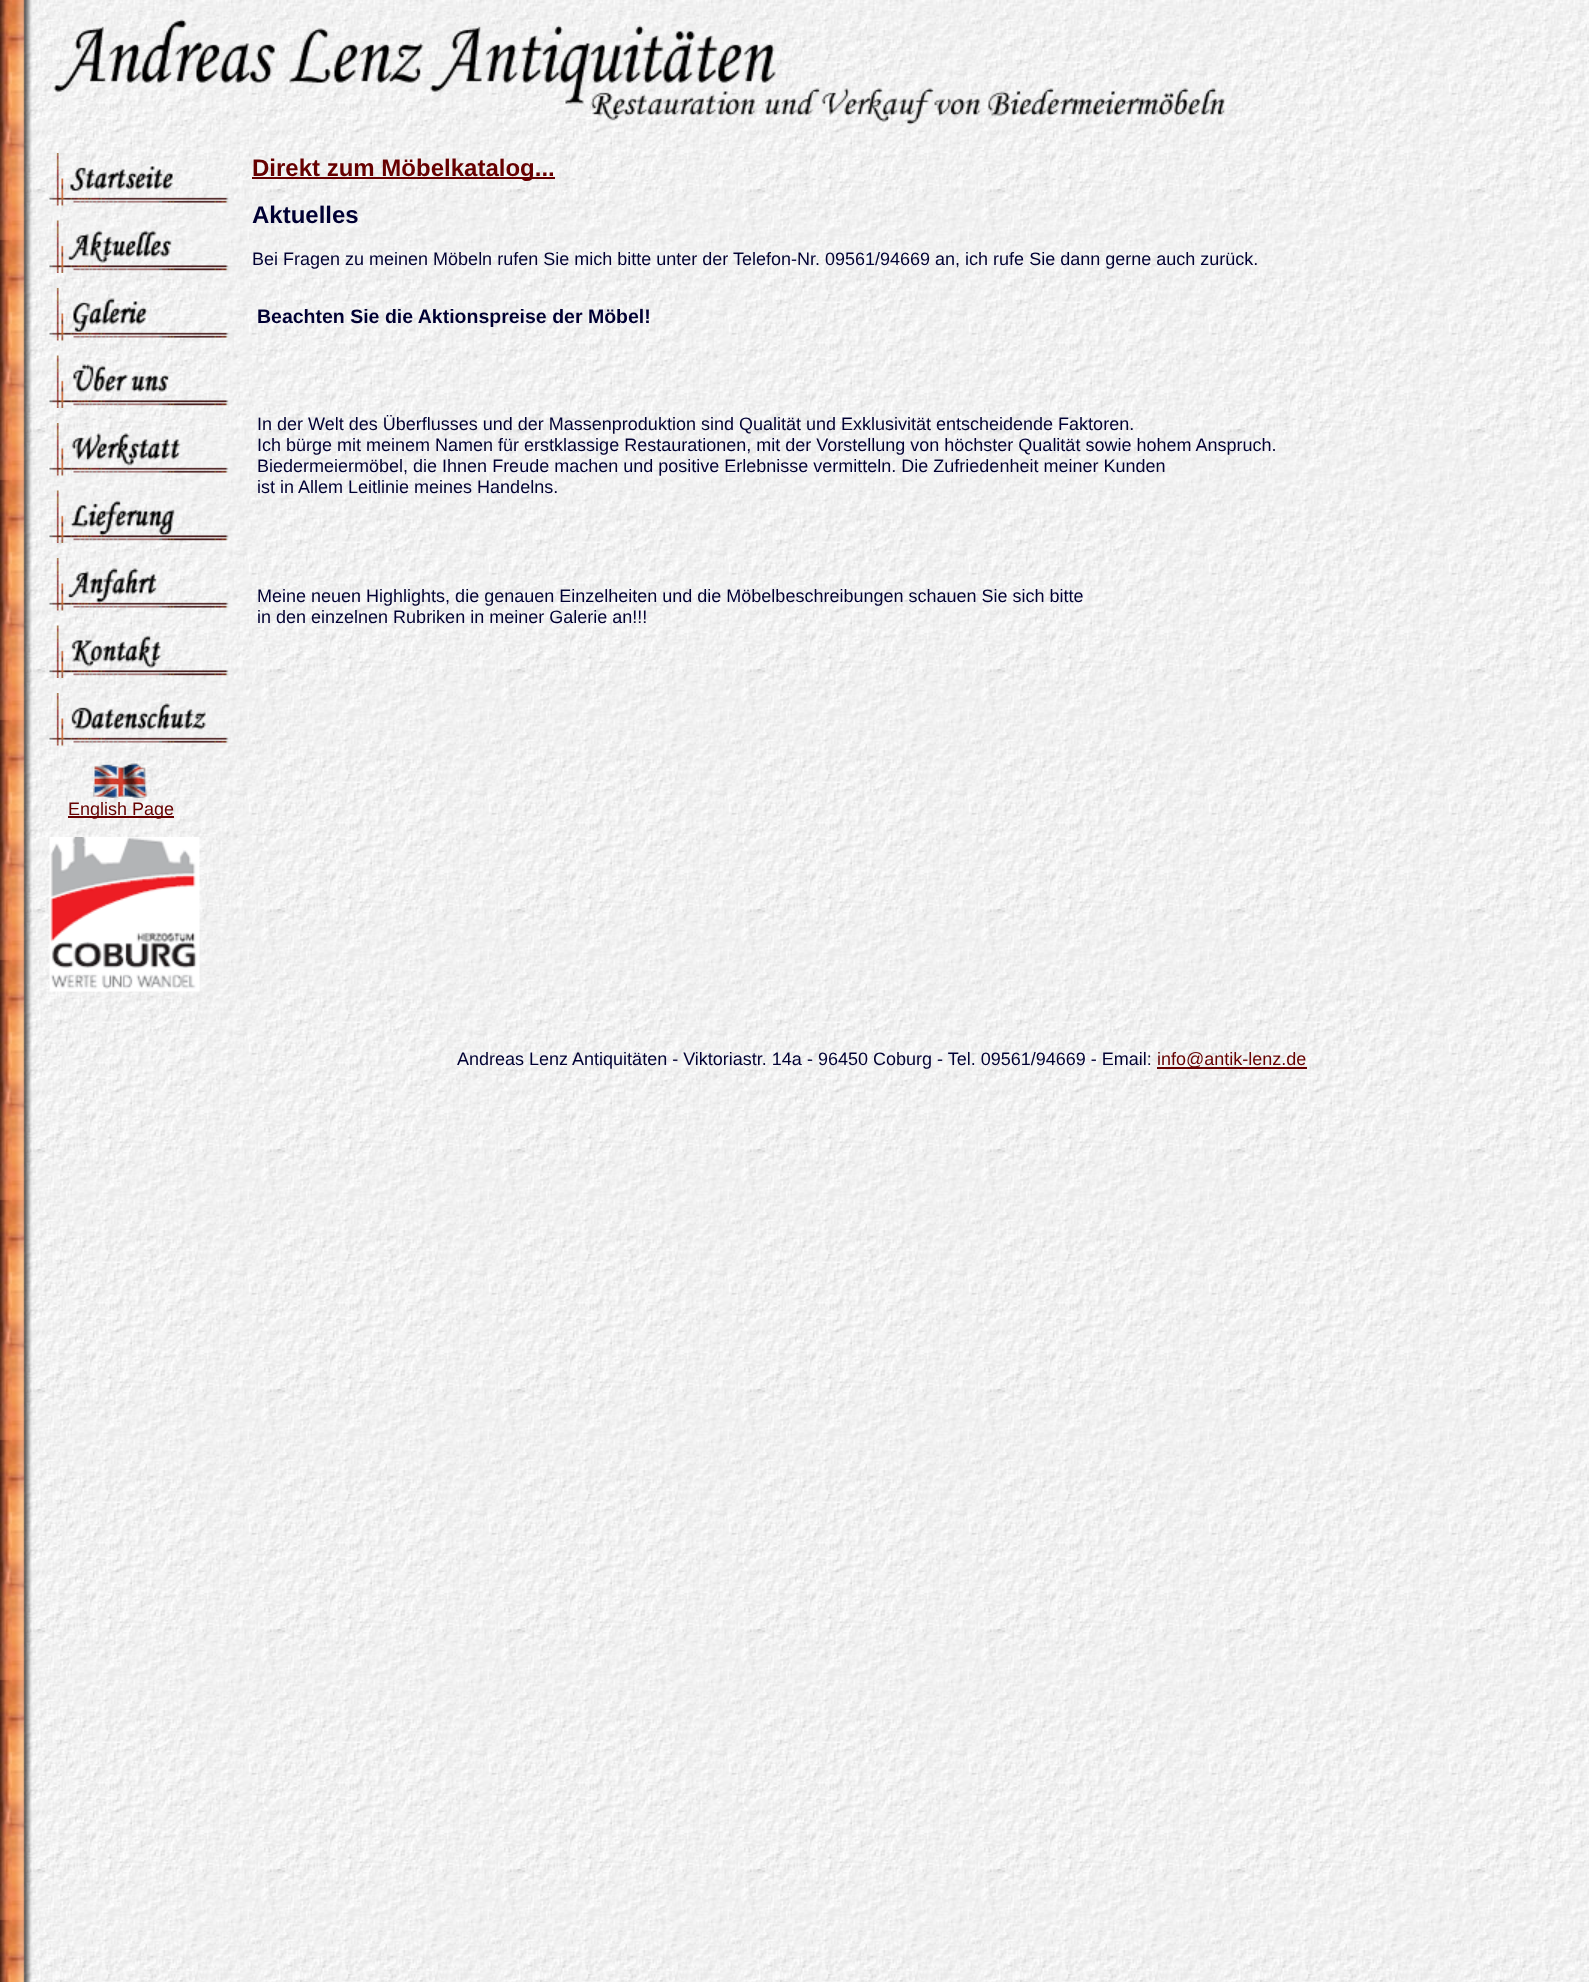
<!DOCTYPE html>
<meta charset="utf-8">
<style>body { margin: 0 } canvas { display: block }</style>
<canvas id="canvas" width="1589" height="1982"></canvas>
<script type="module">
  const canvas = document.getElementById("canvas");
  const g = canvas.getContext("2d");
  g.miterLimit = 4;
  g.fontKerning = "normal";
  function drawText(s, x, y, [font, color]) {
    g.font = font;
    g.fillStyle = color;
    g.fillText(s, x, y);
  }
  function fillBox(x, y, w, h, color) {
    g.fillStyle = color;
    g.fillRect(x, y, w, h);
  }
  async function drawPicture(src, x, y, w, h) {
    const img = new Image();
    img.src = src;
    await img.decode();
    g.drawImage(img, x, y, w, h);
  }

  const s1 = ["bold 24px Liberation Sans", "#660000"];
  const s2 = ["bold 24px Liberation Sans", "#000033"];
  const s3 = ["18px Liberation Sans", "#000033"];
  const s4 = ["bold 19.5px Liberation Sans", "#000033"];
  const s5 = ["18px Liberation Sans", "#660000"];

  fillBox(0, 0, 1589, 1982, "#FFFFFF");
  await drawPicture("pic1.png", 0, 0, 1589, 1982);
  await drawPicture("pic2.png", 53, 19, 1173, 106);
  fillBox(252, 177, 303, 2, "#660000");
  drawText("Direkt zum Möbelkatalog...", 252, 176, s1);
  drawText("Aktuelles", 252, 223, s2);
  drawText("Bei Fragen zu meinen Möbeln rufen Sie mich bitte unter der Telefon-Nr. 09561/94669 an, ich rufe Sie dann gerne auch zurück.", 252, 265, s3);
  drawText("Beachten Sie die Aktionspreise der Möbel!", 257, 323, s4);
  drawText("In der Welt des Überflusses und der Massenproduktion sind Qualität und Exklusivität entscheidende Faktoren.", 257, 430, s3);
  drawText("Ich bürge mit meinem Namen für erstklassige Restaurationen, mit der Vorstellung von höchster Qualität sowie hohem Anspruch.", 257, 451, s3);
  drawText("Biedermeiermöbel, die Ihnen Freude machen und positive Erlebnisse vermitteln. Die Zufriedenheit meiner Kunden", 257, 472, s3);
  drawText("ist in Allem Leitlinie meines Handelns.", 257, 493, s3);
  drawText("Meine neuen Highlights, die genauen Einzelheiten und die Möbelbeschreibungen schauen Sie sich bitte", 257, 602, s3);
  drawText("in den einzelnen Rubriken in meiner Galerie an!!!", 257, 623, s3);
  await drawPicture("pic3.png", 49, 153, 180, 53);
  await drawPicture("pic4.png", 49, 220, 180, 53);
  await drawPicture("pic5.png", 49, 288, 180, 53);
  await drawPicture("pic6.png", 49, 355, 180, 53);
  await drawPicture("pic7.png", 49, 423, 180, 53);
  await drawPicture("pic8.png", 49, 490, 180, 53);
  await drawPicture("pic9.png", 49, 558, 180, 53);
  await drawPicture("pic10.png", 49, 625, 180, 53);
  await drawPicture("pic11.png", 49, 693, 180, 53);
  await drawPicture("pic12.png", 93, 763, 55, 35);
  fillBox(68, 816, 106, 2, "#660000");
  drawText("English Page", 68, 815, s5);
  await drawPicture("pic13.png", 49, 837, 151, 155);
  drawText("Andreas Lenz Antiquitäten - Viktoriastr. 14a - 96450 Coburg - Tel. 09561/94669 - Email:", 457, 1065, s3);
  fillBox(1157, 1067, 150, 2, "#660000");
  drawText("info@antik-lenz.de", 1157, 1065, s5);
</script>
